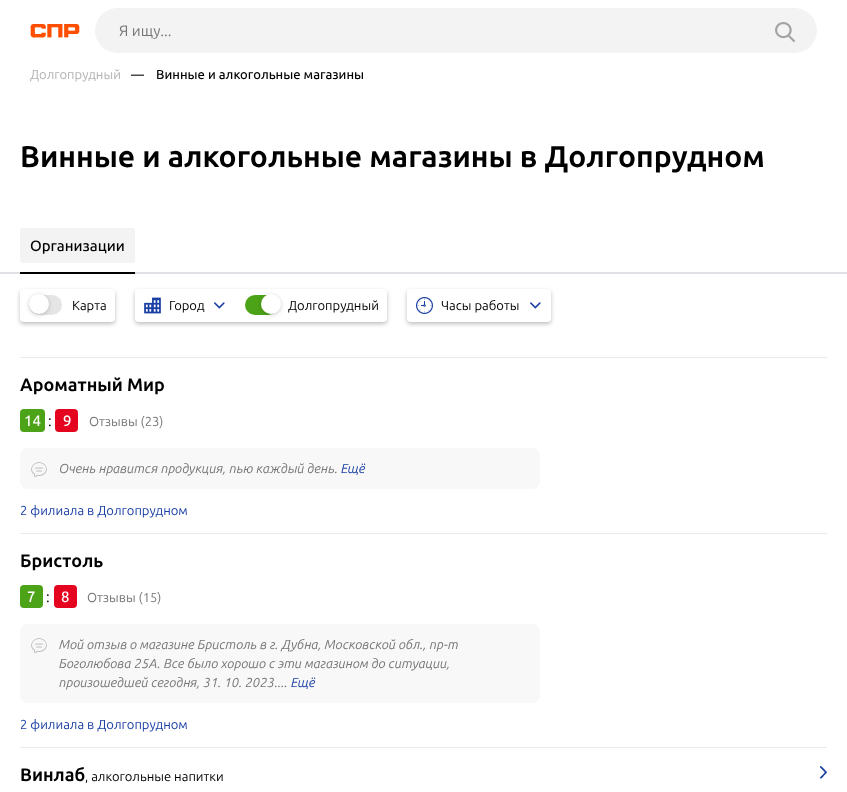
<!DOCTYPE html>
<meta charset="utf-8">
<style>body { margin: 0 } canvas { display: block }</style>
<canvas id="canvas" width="847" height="792"></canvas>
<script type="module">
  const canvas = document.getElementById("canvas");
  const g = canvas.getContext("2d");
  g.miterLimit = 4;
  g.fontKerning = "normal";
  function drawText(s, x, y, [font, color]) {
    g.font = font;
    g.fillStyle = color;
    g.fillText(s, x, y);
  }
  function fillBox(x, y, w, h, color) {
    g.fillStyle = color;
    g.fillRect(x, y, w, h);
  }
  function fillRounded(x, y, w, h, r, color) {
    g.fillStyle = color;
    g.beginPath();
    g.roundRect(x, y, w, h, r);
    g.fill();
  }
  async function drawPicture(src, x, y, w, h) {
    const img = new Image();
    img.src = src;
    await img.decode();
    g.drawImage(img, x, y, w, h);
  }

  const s1 = ["15px Ubuntu", "#757575"];
  const s2 = ["13px Ubuntu", "#B3B2B2"];
  const s3 = ["500 13px Ubuntu", "#000000"];
  const s4 = ["bold 30px Ubuntu", "#000000"];
  const s5 = ["500 15px Ubuntu", "#000000"];
  const s6 = ["13px Ubuntu", "#000000"];
  const s7 = ["bold 18px Ubuntu", "#000000"];
  const s8 = ["500 15px Ubuntu", "#FFFFFF"];
  const s9 = ["15px Ubuntu", "#000000"];
  const s10 = ["13px Ubuntu", "#757575"];
  const s11 = ["italic 13px Ubuntu", "#757575"];
  const s12 = ["italic 13px Ubuntu", "#193FA4"];
  const s13 = ["13px Ubuntu", "#193FA4"];

  fillBox(0, 0, 847, 792, "#FFFFFF");
  await drawPicture("pic1.png", 30, 24, 50, 14);
  fillRounded(95, 8, 722, 45, 22.5, "#F3F3F3");
  drawText("Я ищу...", 119, 36, s1);
  await drawPicture("pic2.png", 775, 22, 20, 20);
  drawText("Долгопрудный", 30, 79, s2);
  drawText("—    Винные и алкогольные магазины", 131, 79, s3);
  drawText("Винные и алкогольные магазины в Долгопрудном", 20, 167, s4);
  fillBox(0, 272, 847, 2, "#DFE1E5");
  fillBox(20, 272, 115, 2, "#000000");
  fillRounded(20, 228, 115, 35, 3, "#F3F3F3");
  drawText("Организации", 30, 251, s5);
  g.fillStyle = "rgba(0, 0, 0, 0.25)";
  g.filter = "blur(2px)";
  g.beginPath();
  g.roundRect(20, 291, 95, 33, 4);
  g.fill();
  g.filter = "none";
  fillRounded(20, 289, 95, 33, 4, "#FFFFFF");
  fillRounded(29, 295, 33, 20, 10, "#E5E5E5");
  g.fillStyle = "rgba(0, 0, 0, 0.2)";
  g.filter = "blur(2px)";
  g.beginPath();
  g.roundRect(29, 295, 20, 20, 10);
  g.fill();
  g.filter = "none";
  g.fillStyle = "#FFFFFF";
  g.beginPath();
  g.arc(39, 304, 10, 0, Math.PI * 2);
  g.fill();
  drawText("Карта", 72, 310, s6);
  g.fillStyle = "rgba(0, 0, 0, 0.25)";
  g.filter = "blur(2px)";
  g.beginPath();
  g.roundRect(135, 291, 252, 33, 4);
  g.fill();
  g.filter = "none";
  fillRounded(135, 289, 252, 33, 4, "#FFFFFF");
  await drawPicture("pic3.png", 144, 297, 17, 17);
  drawText("Город", 169, 310, s6);
  await drawPicture("pic4.png", 214, 302, 11, 7);
  fillRounded(245, 295, 33, 20, 10, "#4CA317");
  g.fillStyle = "rgba(0, 0, 0, 0.2)";
  g.filter = "blur(2px)";
  g.beginPath();
  g.roundRect(261, 295, 20, 20, 10);
  g.fill();
  g.filter = "none";
  g.fillStyle = "#FFFFFF";
  g.beginPath();
  g.arc(271, 304, 10, 0, Math.PI * 2);
  g.fill();
  drawText("Долгопрудный", 288, 310, s6);
  g.fillStyle = "rgba(0, 0, 0, 0.25)";
  g.filter = "blur(2px)";
  g.beginPath();
  g.roundRect(407, 291, 144, 33, 4);
  g.fill();
  g.filter = "none";
  fillRounded(407, 289, 144, 33, 4, "#FFFFFF");
  await drawPicture("pic5.png", 416, 297, 17, 17);
  drawText("Часы работы", 441, 310, s6);
  await drawPicture("pic4.png", 530, 302, 11, 7);
  fillBox(20, 357, 807, 1, "#E8EAEE");
  drawText("Ароматный Мир", 20, 391, s7);
  fillRounded(20, 409, 25, 23, 4, "#4CA317");
  drawText("14", 24, 426, s8);
  drawText(":", 48, 426, s9);
  fillRounded(55, 409, 23, 23, 4, "#E4041F");
  drawText("9", 63, 426, s8);
  drawText("Отзывы (23)", 89, 426, s10);
  fillRounded(20, 448, 520, 41, 8, "#F8F8F8");
  await drawPicture("pic6.png", 31, 462, 16, 15);
  drawText("Очень нравится продукция, пью каждый день.", 59, 473, s11);
  drawText("Ещё", 341, 473, s12);
  drawText("2 филиала в Долгопрудном", 20, 515, s13);
  fillBox(20, 533, 807, 1, "#E8EAEE");
  drawText("Бристоль", 20, 567, s7);
  fillRounded(20, 585, 23, 23, 4, "#4CA317");
  drawText("7", 27, 602, s8);
  drawText(":", 46, 602, s9);
  fillRounded(54, 585, 23, 23, 4, "#E4041F");
  drawText("8", 61, 602, s8);
  drawText("Отзывы (15)", 87, 602, s10);
  fillRounded(20, 624, 520, 79, 8, "#F8F8F8");
  await drawPicture("pic6.png", 31, 638, 16, 15);
  drawText("Мой отзыв о магазине Бристоль в г. Дубна, Московской обл., пр-т", 59, 649, s11);
  drawText("Боголюбова 25А. Все было хорошо с эти магазином до ситуации,", 59, 668, s11);
  drawText("произошедшей сегодня, 31. 10. 2023....", 59, 687, s11);
  drawText("Ещё", 291, 687, s12);
  drawText("2 филиала в Долгопрудном", 20, 729, s13);
  fillBox(20, 747, 807, 1, "#E8EAEE");
  drawText("Винлаб", 20, 781, s7);
  drawText(", алкогольные напитки", 85, 781, s6);
  await drawPicture("pic7.png", 820, 766, 7, 13);
</script>
